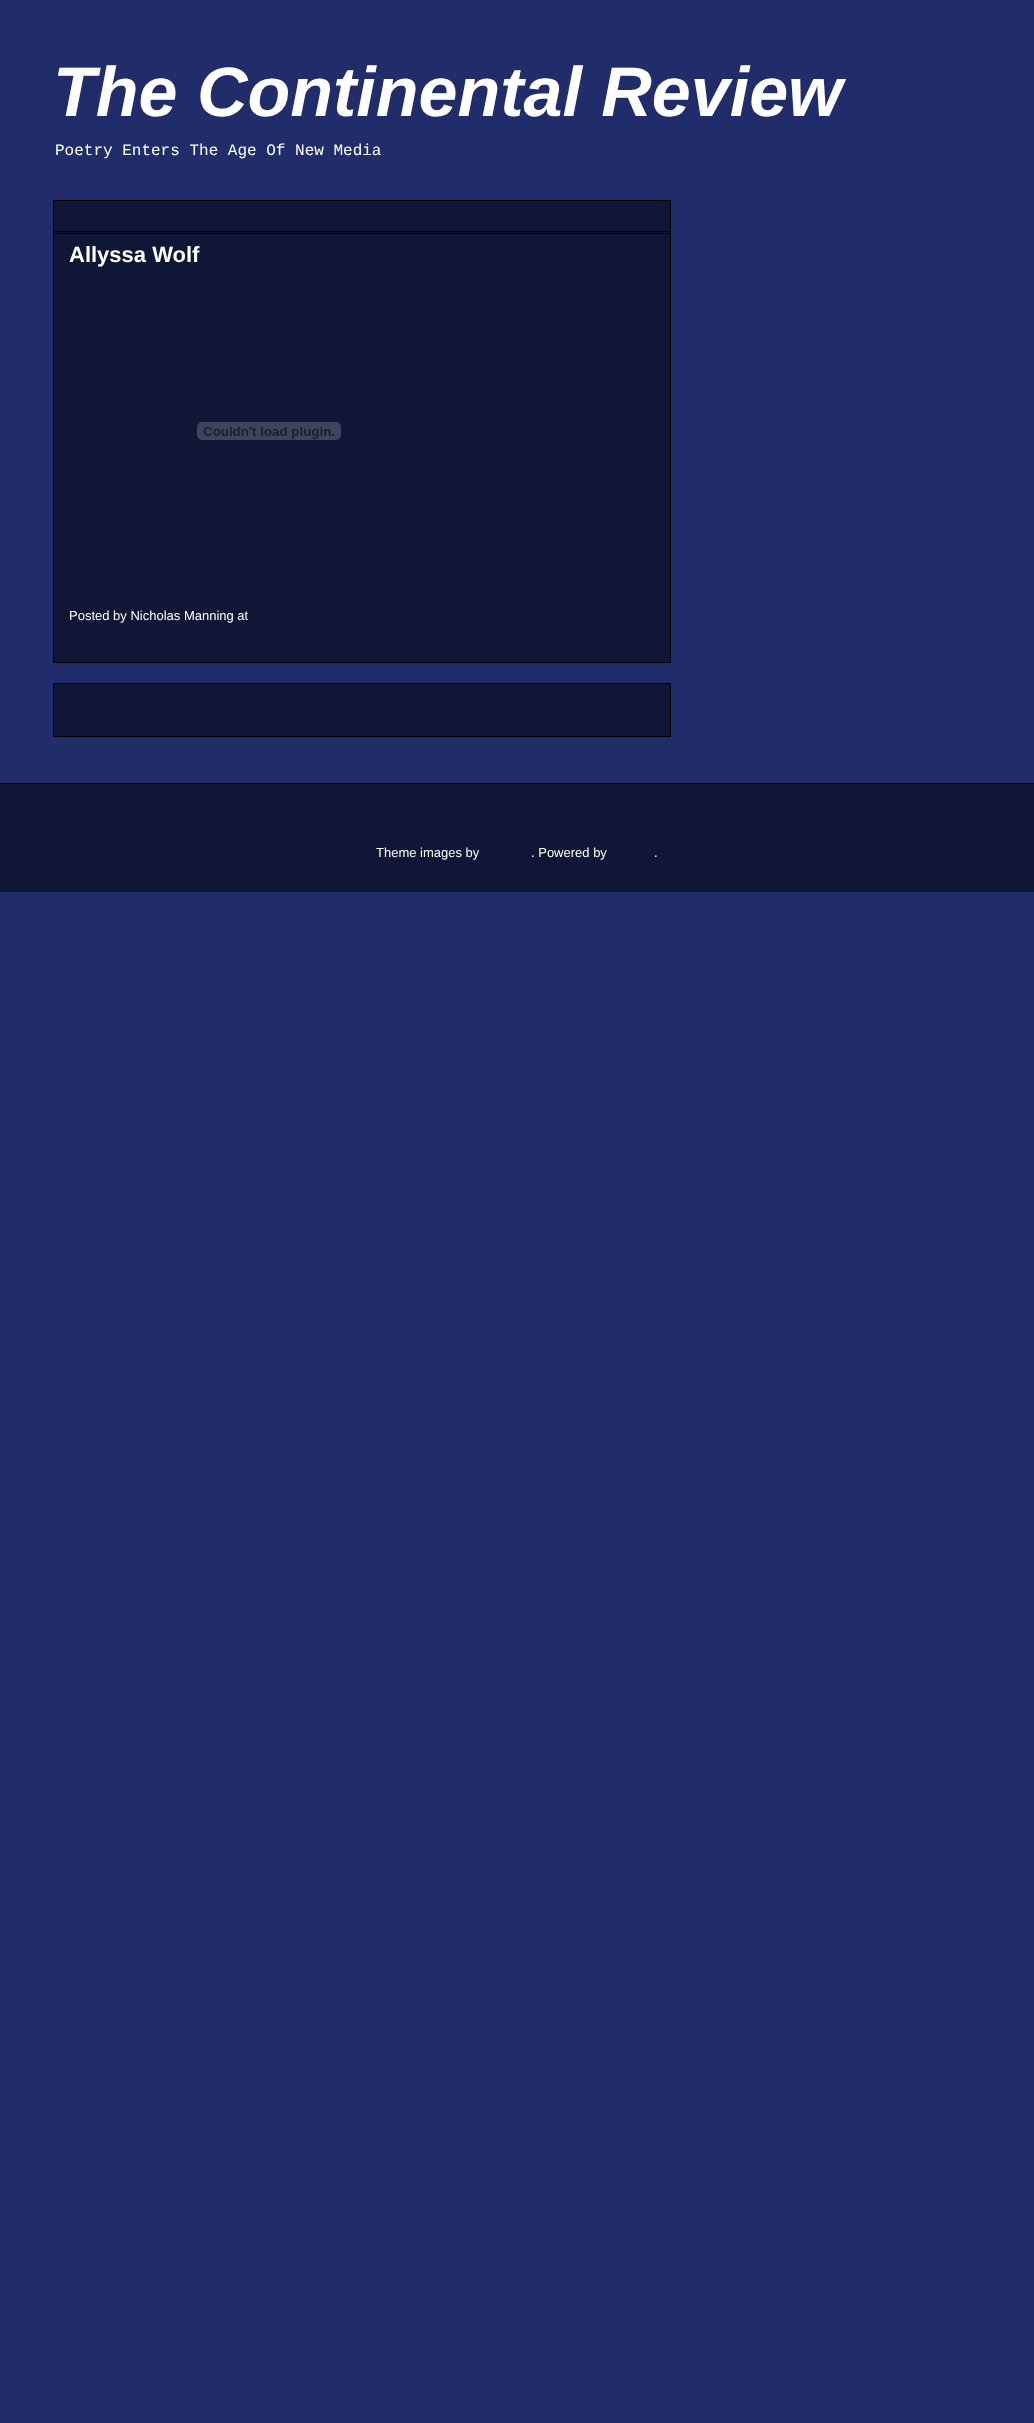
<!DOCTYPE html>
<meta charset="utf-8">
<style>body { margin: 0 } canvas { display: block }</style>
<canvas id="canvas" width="1034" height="2423"></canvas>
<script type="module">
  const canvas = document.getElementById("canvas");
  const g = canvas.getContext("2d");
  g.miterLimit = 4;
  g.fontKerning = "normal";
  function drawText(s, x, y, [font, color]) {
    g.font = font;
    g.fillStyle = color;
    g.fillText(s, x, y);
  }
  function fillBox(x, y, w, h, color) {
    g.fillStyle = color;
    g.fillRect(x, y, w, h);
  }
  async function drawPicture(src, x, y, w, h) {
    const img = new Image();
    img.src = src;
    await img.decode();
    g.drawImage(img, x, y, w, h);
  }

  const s1 = ["italic bold 70px Liberation Sans", "#FFFFFF"];
  const s2 = ["16px Liberation Mono", "#FFFFFF"];
  const s3 = ["bold 22px Liberation Sans", "#FFFFFF"];
  const s4 = ["13px Liberation Sans", "#FFFFFF"];

  fillBox(0, 0, 1034, 2423, "#212C6A");
  drawText("The Continental Review", 53, 116, s1);
  drawText("Poetry Enters The Age Of New Media", 55, 155, s2);
  g.fillStyle = "#101635";
  g.beginPath();
  g.rect(53.5, 200.5, 617, 462);
  g.fill();
  g.strokeStyle = "#000000";
  g.stroke();
  fillBox(54, 231, 616, 1, "#000000");
  fillBox(54, 233, 616, 1, "#000000");
  drawText("Allyssa Wolf", 69, 262, s3);
  await drawPicture("pic1.png", 197, 422, 144, 18);
  drawText("Posted by Nicholas Manning at", 69, 620, s4);
  g.fillStyle = "#101635";
  g.beginPath();
  g.rect(53.5, 683.5, 617, 53);
  g.fill();
  g.stroke();
  fillBox(0, 784, 1034, 108, "#101635");
  fillBox(0, 783, 1034, 1, "#000000");
  drawText("Theme images by", 376, 857, s4);
  drawText(". Powered by", 531, 857, s4);
  drawText(".", 654, 857, s4);
</script>
